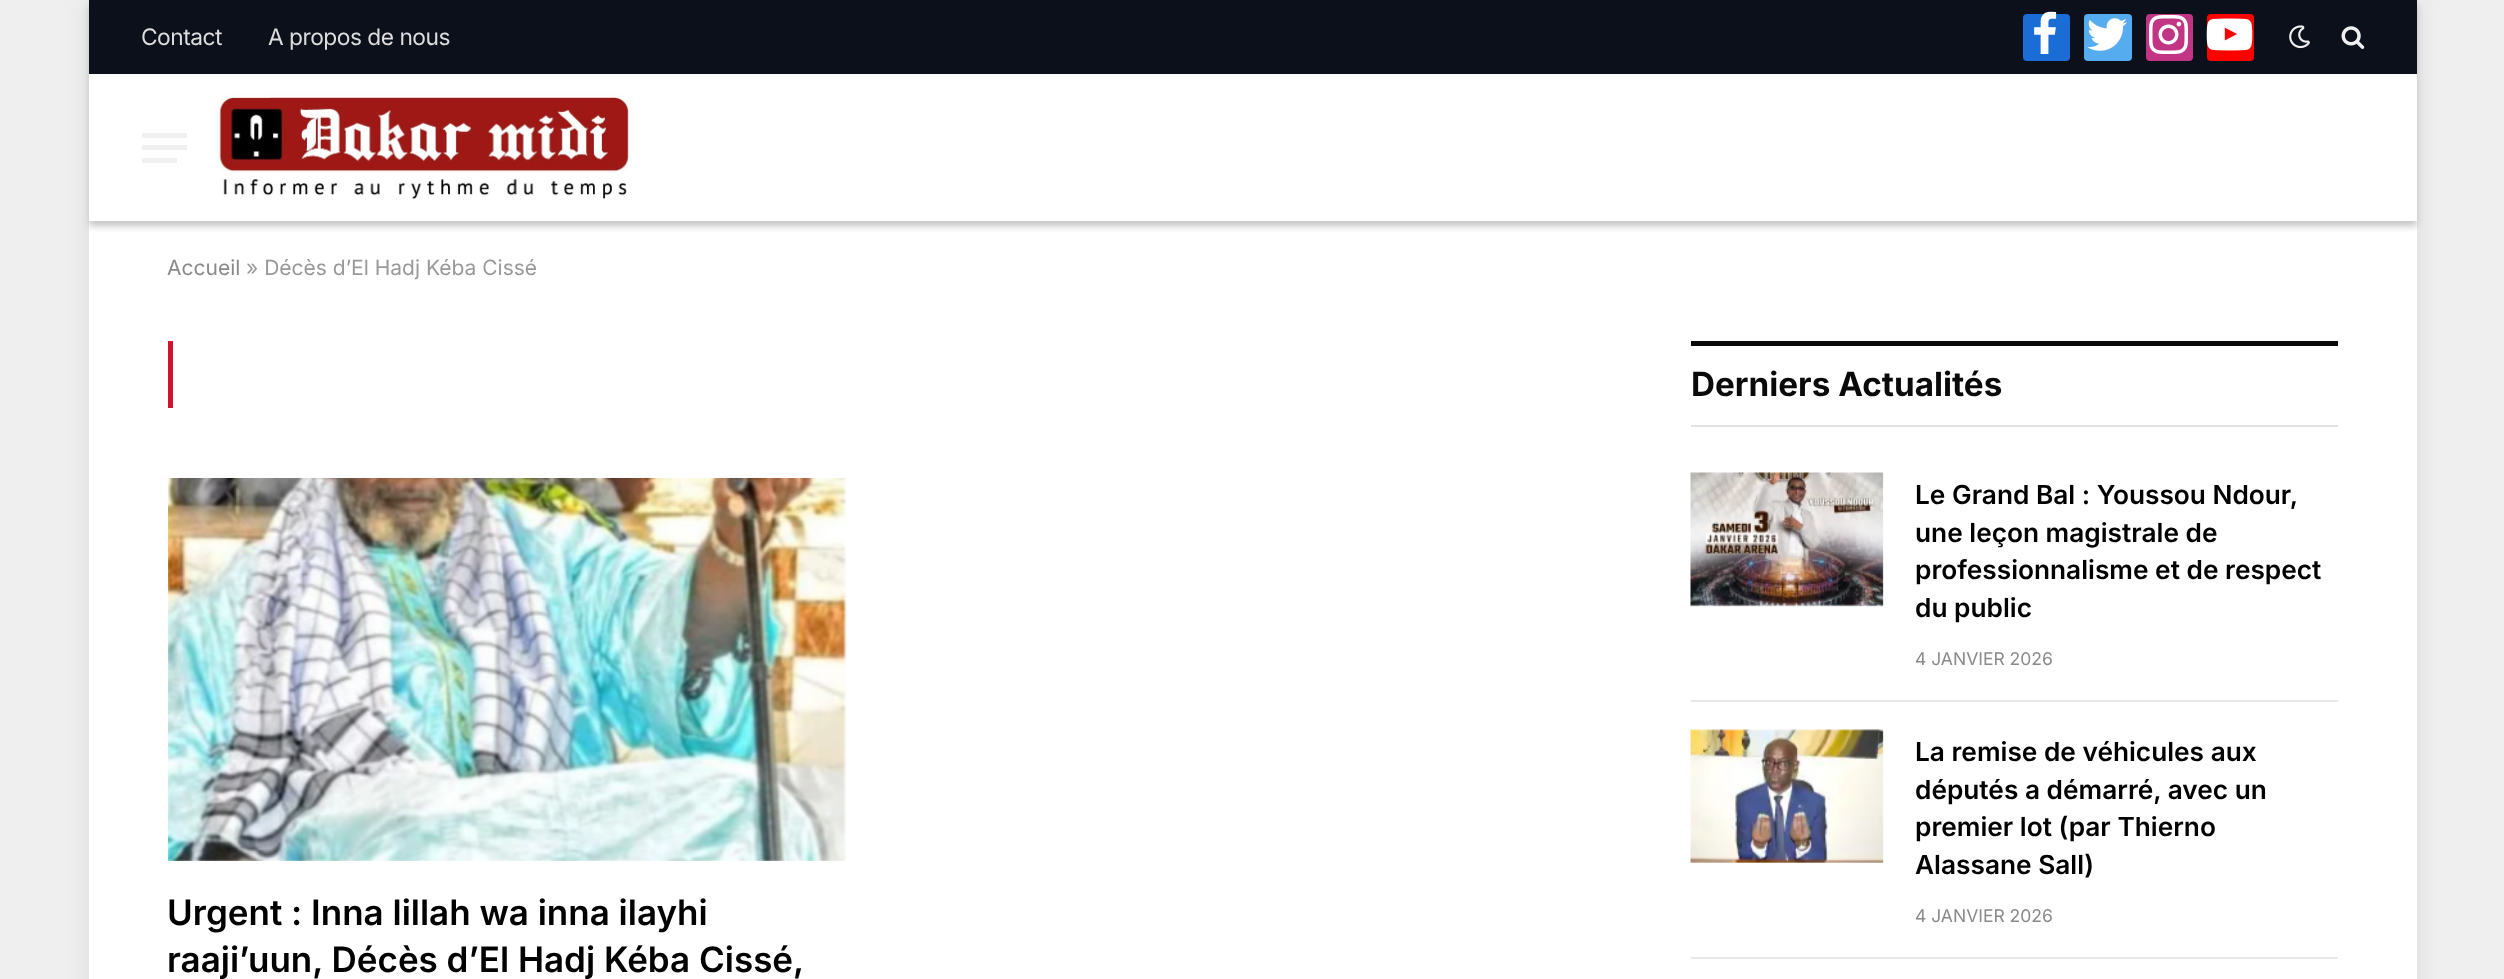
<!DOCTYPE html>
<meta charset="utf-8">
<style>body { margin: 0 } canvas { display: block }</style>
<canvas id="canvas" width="2504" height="979"></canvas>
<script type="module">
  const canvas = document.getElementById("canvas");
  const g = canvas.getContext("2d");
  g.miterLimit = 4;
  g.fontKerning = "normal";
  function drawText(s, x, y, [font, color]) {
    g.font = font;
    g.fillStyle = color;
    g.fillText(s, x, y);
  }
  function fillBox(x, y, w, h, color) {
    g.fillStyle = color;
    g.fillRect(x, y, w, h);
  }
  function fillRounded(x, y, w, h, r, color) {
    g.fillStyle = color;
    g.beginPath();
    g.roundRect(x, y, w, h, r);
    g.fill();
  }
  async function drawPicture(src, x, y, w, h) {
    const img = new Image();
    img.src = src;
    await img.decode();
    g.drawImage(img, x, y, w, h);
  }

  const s1 = ["22.75px Inter", "#DDDDDD"];
  const s2 = ["21px Inter", "#8A8A8A"];
  const s3 = ["21px Inter", "#999999"];
  const s4 = ["bold 33.25px Inter", "#0A0A0A"];
  const s5 = ["600 26.25px Inter", "#000000"];
  const s6 = ["17.5px Inter", "#8A8A8A"];
  const s7 = ["600 35px Inter", "#000000"];

  fillBox(0, 0, 2504, 979, "#EFEFEF");
  g.fillStyle = "rgba(0, 0, 0, 0.08)";
  g.filter = "blur(13px)";
  g.beginPath();
  g.rect(89, 0, 2328, 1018);
  g.fill();
  g.filter = "none";
  fillBox(89, 221, 2328, 758, "#FFFFFF");
  g.fillStyle = "#C4C4C4";
  g.filter = "blur(3.5px)";
  g.beginPath();
  g.rect(89, 5, 2328, 221);
  g.fill();
  g.filter = "none";
  fillBox(89, 0, 2328, 74, "#0B101B");
  g.letterSpacing = "-0.5px";
  drawText("Contact", 141, 45, s1);
  drawText("A propos de nous", 268, 45, s1);
  fillRounded(2023, 14, 47, 47, 4, "#1A6DD4");
  await drawPicture("pic1.png", 2034, 11, 23, 43);
  fillRounded(2084, 14, 48, 47, 4, "#55ACEF");
  await drawPicture("pic2.png", 2087, 18, 40, 33);
  fillRounded(2146, 14, 47, 47, 4, "#C13584");
  await drawPicture("pic3.png", 2149, 15, 39, 39);
  fillRounded(2207, 14, 47, 47, 4, "#FF0000");
  await drawPicture("pic4.png", 2206, 18, 47, 33);
  await drawPicture("pic5.png", 2289, 25, 21, 24);
  await drawPicture("pic6.png", 2341, 26, 24, 23);
  fillBox(89, 74, 2328, 147, "#FFFFFF");
  fillBox(142, 158, 35, 5, "#F0F0F0");
  fillBox(142, 133, 45, 5, "#F0F0F0");
  fillBox(142, 145, 45, 5, "#F0F0F0");
  await drawPicture("pic7.png", 215, 91, 416, 109);
  g.letterSpacing = "0px";
  drawText("Accueil", 167, 275, s2);
  drawText("» Décès d’El Hadj Kéba Cissé", 246, 275, s3);
  fillBox(1691, 341, 647, 5, "#0A0A0A");
  fillBox(1691, 425, 647, 2, "#E2E2E2");
  drawText("Derniers Actualités", 1691, 396, s4);
  await drawPicture("pic8.png", 1690, 472, 194, 135);
  drawText("Le Grand Bal : Youssou Ndour,", 1915, 504, s5);
  drawText("une leçon magistrale de", 1915, 542, s5);
  drawText("professionnalisme et de respect", 1915, 579, s5);
  drawText("du public", 1915, 617, s5);
  drawText("4 JANVIER 2026", 1915, 665, s6);
  fillBox(1691, 700, 647, 2, "#E8E8E8");
  await drawPicture("pic9.png", 1690, 729, 194, 134);
  drawText("La remise de véhicules aux", 1915, 761, s5);
  drawText("députés a démarré, avec un", 1915, 799, s5);
  drawText("premier lot (par Thierno", 1915, 836, s5);
  drawText("Alassane Sall)", 1915, 874, s5);
  drawText("4 JANVIER 2026", 1915, 922, s6);
  fillBox(1691, 957, 647, 2, "#E8E8E8");
  fillBox(168, 341, 5, 67, "#D1142E");
  await drawPicture("pic10.png", 168, 478, 679, 383);
  drawText("Urgent : Inna lillah wa inna ilayhi", 167, 925, s7);
  drawText("raaji’uun, Décès d’El Hadj Kéba Cissé,", 167, 972, s7);
</script>
